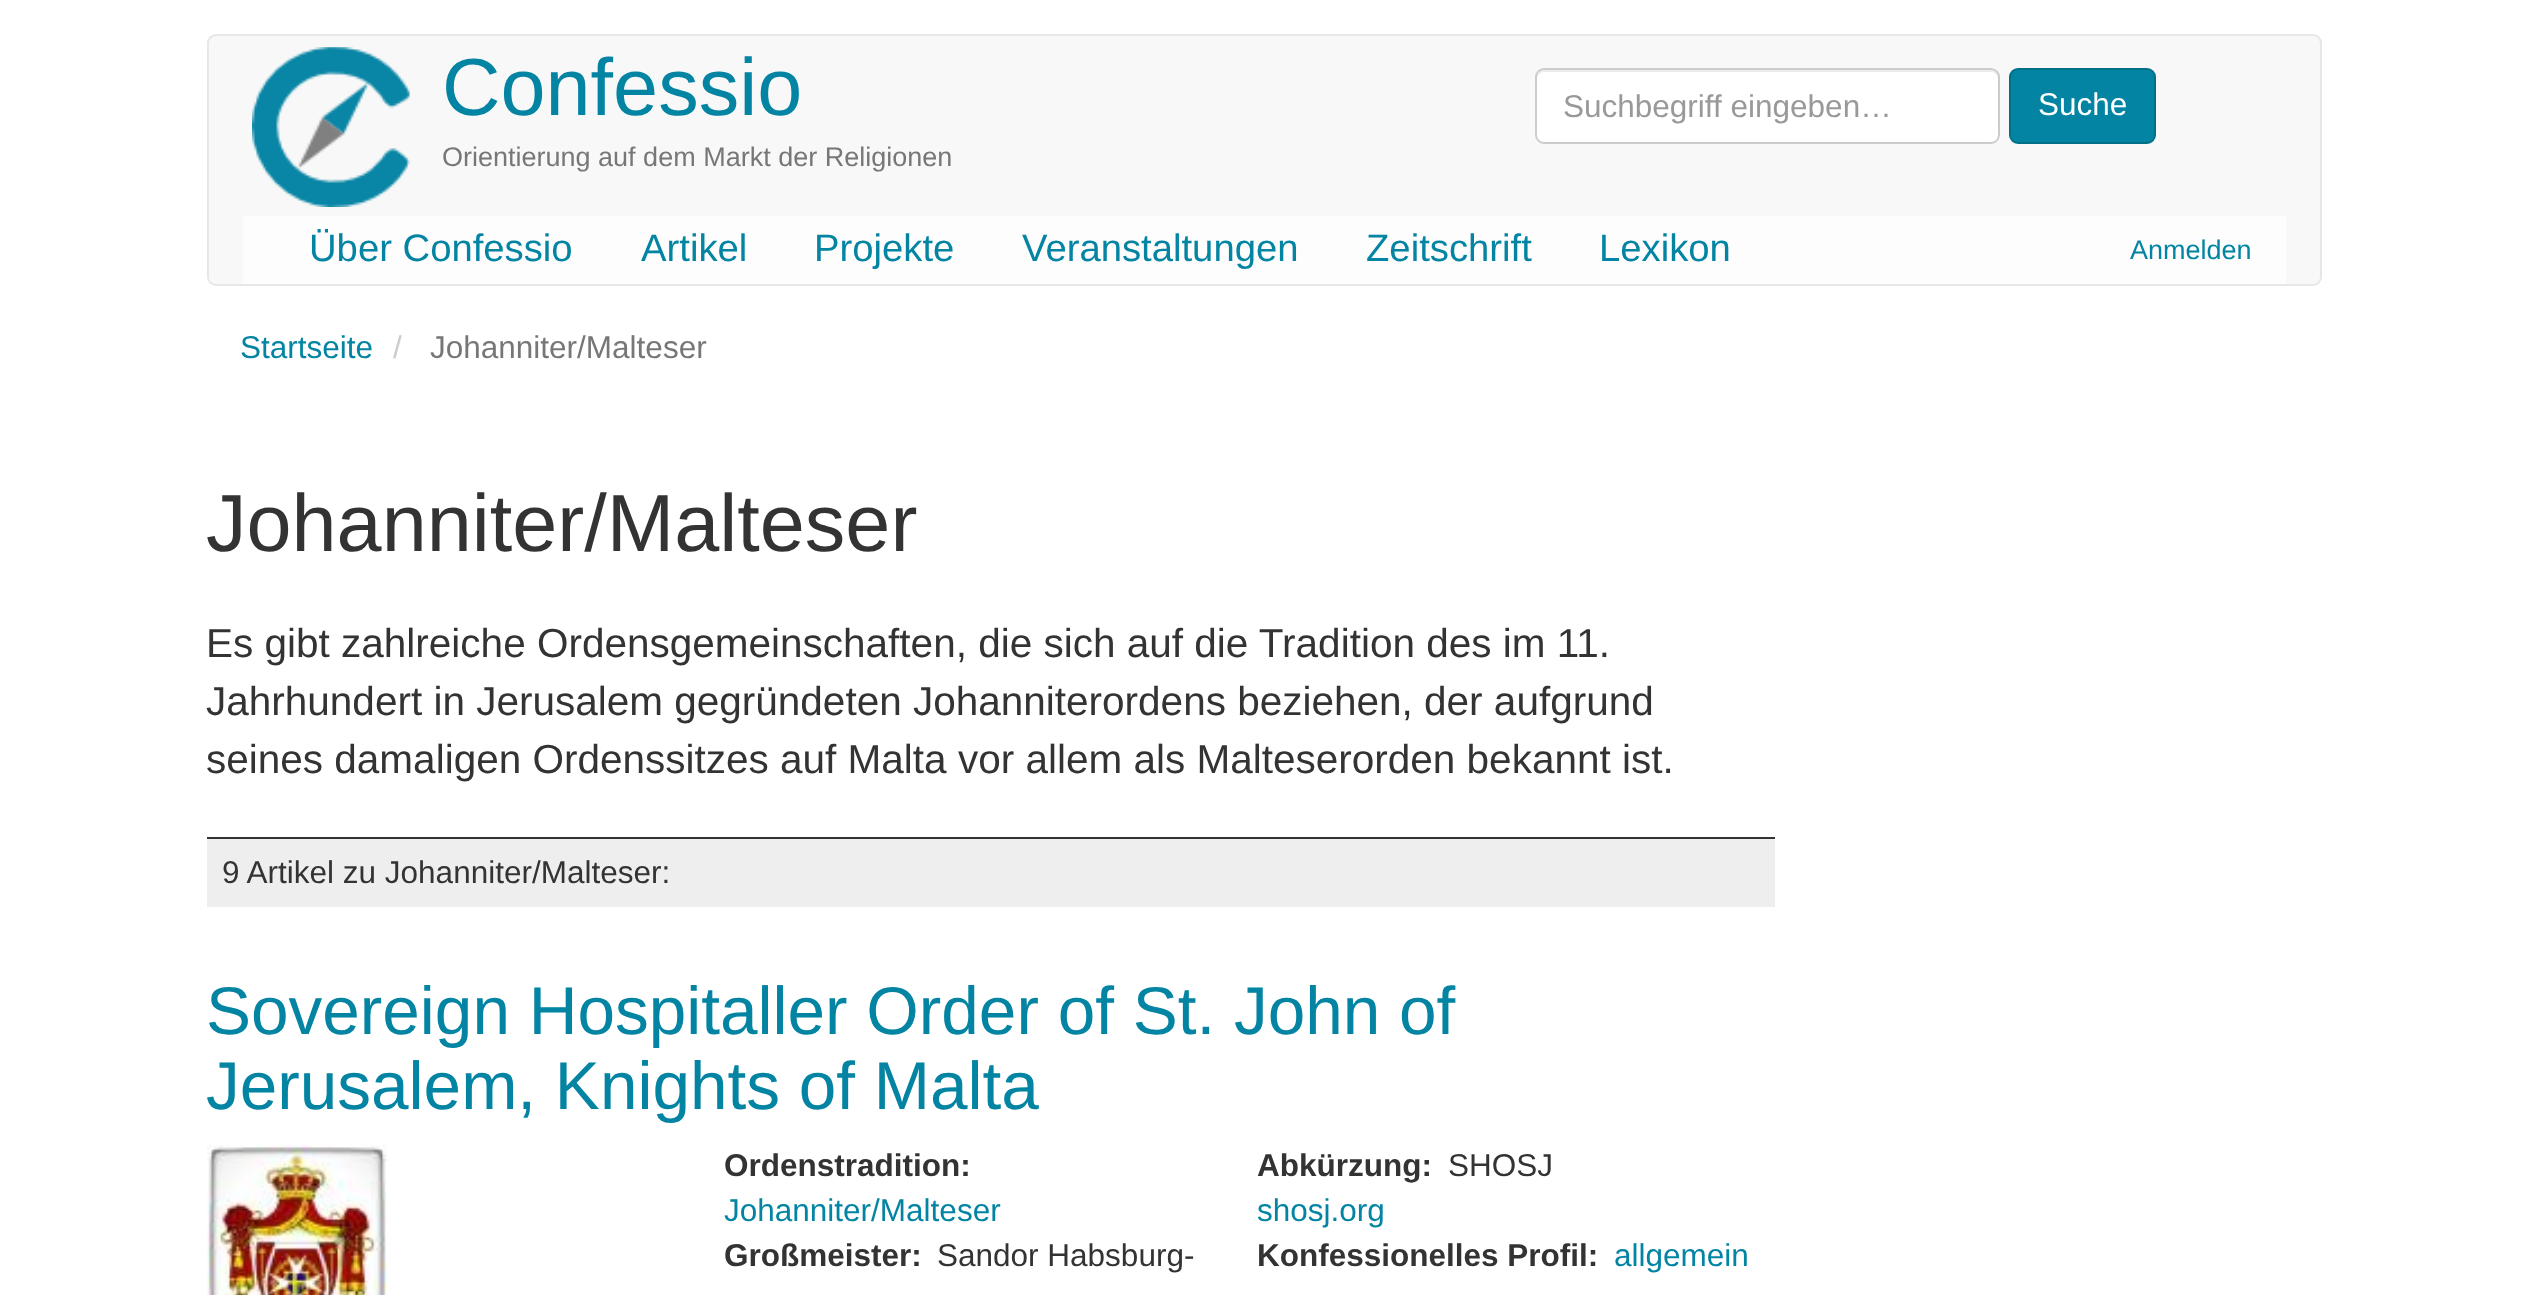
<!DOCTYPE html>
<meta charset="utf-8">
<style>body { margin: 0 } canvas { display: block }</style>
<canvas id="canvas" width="2526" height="1295"></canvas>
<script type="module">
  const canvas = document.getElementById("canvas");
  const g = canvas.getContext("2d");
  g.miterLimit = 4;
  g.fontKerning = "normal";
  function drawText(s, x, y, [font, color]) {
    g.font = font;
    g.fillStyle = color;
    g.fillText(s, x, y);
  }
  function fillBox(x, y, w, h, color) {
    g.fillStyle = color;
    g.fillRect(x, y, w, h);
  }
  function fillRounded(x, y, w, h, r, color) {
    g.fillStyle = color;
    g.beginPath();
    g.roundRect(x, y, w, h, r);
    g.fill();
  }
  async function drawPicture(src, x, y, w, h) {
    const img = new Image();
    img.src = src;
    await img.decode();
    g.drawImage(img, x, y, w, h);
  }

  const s1 = ["81px Liberation Sans", "#0384A3"];
  const s2 = ["27px Liberation Sans", "#777777"];
  const s3 = ["31.5px Liberation Sans", "#999999"];
  const s4 = ["31.5px Liberation Sans", "#FFFFFF"];
  const s5 = ["38.25px Liberation Sans", "#0384A3"];
  const s6 = ["27px Liberation Sans", "#0384A3"];
  const s7 = ["31.5px Liberation Sans", "#0384A3"];
  const s8 = ["31.5px Liberation Sans", "#CCCCCC"];
  const s9 = ["31.5px Liberation Sans", "#777777"];
  const s10 = ["81px Liberation Sans", "#333333"];
  const s11 = ["40.5px Liberation Sans", "#333333"];
  const s12 = ["31.5px Liberation Sans", "#333333"];
  const s13 = ["67.5px Liberation Sans", "#0384A3"];
  const s14 = ["bold 31.5px Liberation Sans", "#333333"];

  fillBox(0, 0, 2526, 1295, "#FFFFFF");
  g.fillStyle = "#F8F8F8";
  g.beginPath();
  g.roundRect(208, 35, 2113, 250, 8);
  g.fill();
  g.strokeStyle = "#E7E7E7";
  g.lineWidth = 2;
  g.stroke();
  await drawPicture("pic1.png", 252, 47, 158, 160);
  drawText("Confessio", 442, 115, s1);
  drawText("Orientierung auf dem Markt der Religionen", 442, 166, s2);
  fillRounded(1535, 68, 465, 76, 9, "#FFFFFF");
  g.fillStyle = "#ECECEC";
  g.beginPath();
  g.moveTo(1544, 72);
  g.lineTo(1991, 72);
  g.bezierCurveTo(1995, 72, 1998, 75, 1998, 79);
  g.lineTo(1998, 77);
  g.bezierCurveTo(1998, 73, 1995, 70, 1991, 70);
  g.lineTo(1544, 70);
  g.bezierCurveTo(1540, 70, 1537, 73, 1537, 77);
  g.lineTo(1537, 79);
  g.bezierCurveTo(1537, 75, 1540, 72, 1544, 72);
  g.closePath();
  g.fill();
  g.beginPath();
  g.roundRect(1536, 69, 463, 74, 8);
  g.strokeStyle = "#CCCCCC";
  g.stroke();
  drawText("Suchbegriff eingeben…", 1563, 117, s3);
  g.fillStyle = "#0384A3";
  g.beginPath();
  g.roundRect(2010, 69, 145, 74, 8);
  g.fill();
  g.strokeStyle = "#03708A";
  g.stroke();
  drawText("Suche", 2038, 115, s4);
  fillBox(243, 216, 2043, 68, "#FDFDFD");
  drawText("Über Confessio", 309, 261, s5);
  drawText("Artikel", 641, 261, s5);
  drawText("Projekte", 814, 261, s5);
  drawText("Veranstaltungen", 1022, 261, s5);
  drawText("Zeitschrift", 1366, 261, s5);
  drawText("Lexikon", 1599, 261, s5);
  drawText("Anmelden", 2130, 259, s6);
  drawText("Startseite", 240, 358, s7);
  drawText("/", 393, 358, s8);
  drawText("Johanniter/Malteser", 430, 358, s9);
  drawText("Johanniter/Malteser", 206, 551, s10);
  drawText("Es gibt zahlreiche Ordensgemeinschaften, die sich auf die Tradition des im 11.", 206, 657, s11);
  drawText("Jahrhundert in Jerusalem gegründeten Johanniterordens beziehen, der aufgrund", 206, 715, s11);
  drawText("seines damaligen Ordenssitzes auf Malta vor allem als Malteserorden bekannt ist.", 206, 773, s11);
  fillBox(207, 839, 1568, 68, "#EEEEEE");
  fillBox(207, 837, 1568, 2, "#333333");
  drawText("9 Artikel zu Johanniter/Malteser:", 222, 883, s12);
  drawText("Sovereign Hospitaller Order of St. John of", 206, 1034, s13);
  drawText("Jerusalem, Knights of Malta", 206, 1109, s13);
  await drawPicture("pic2.png", 207, 1145, 180, 150);
  drawText("Ordenstradition:", 724, 1176, s14);
  drawText("Johanniter/Malteser", 724, 1221, s7);
  drawText("Großmeister:", 724, 1266, s14);
  drawText("Sandor Habsburg-", 937, 1266, s12);
  drawText("Abkürzung:", 1257, 1176, s14);
  drawText("SHOSJ", 1448, 1176, s12);
  drawText("shosj.org", 1257, 1221, s7);
  drawText("Konfessionelles Profil:", 1257, 1266, s14);
  drawText("allgemein", 1614, 1266, s7);
</script>
